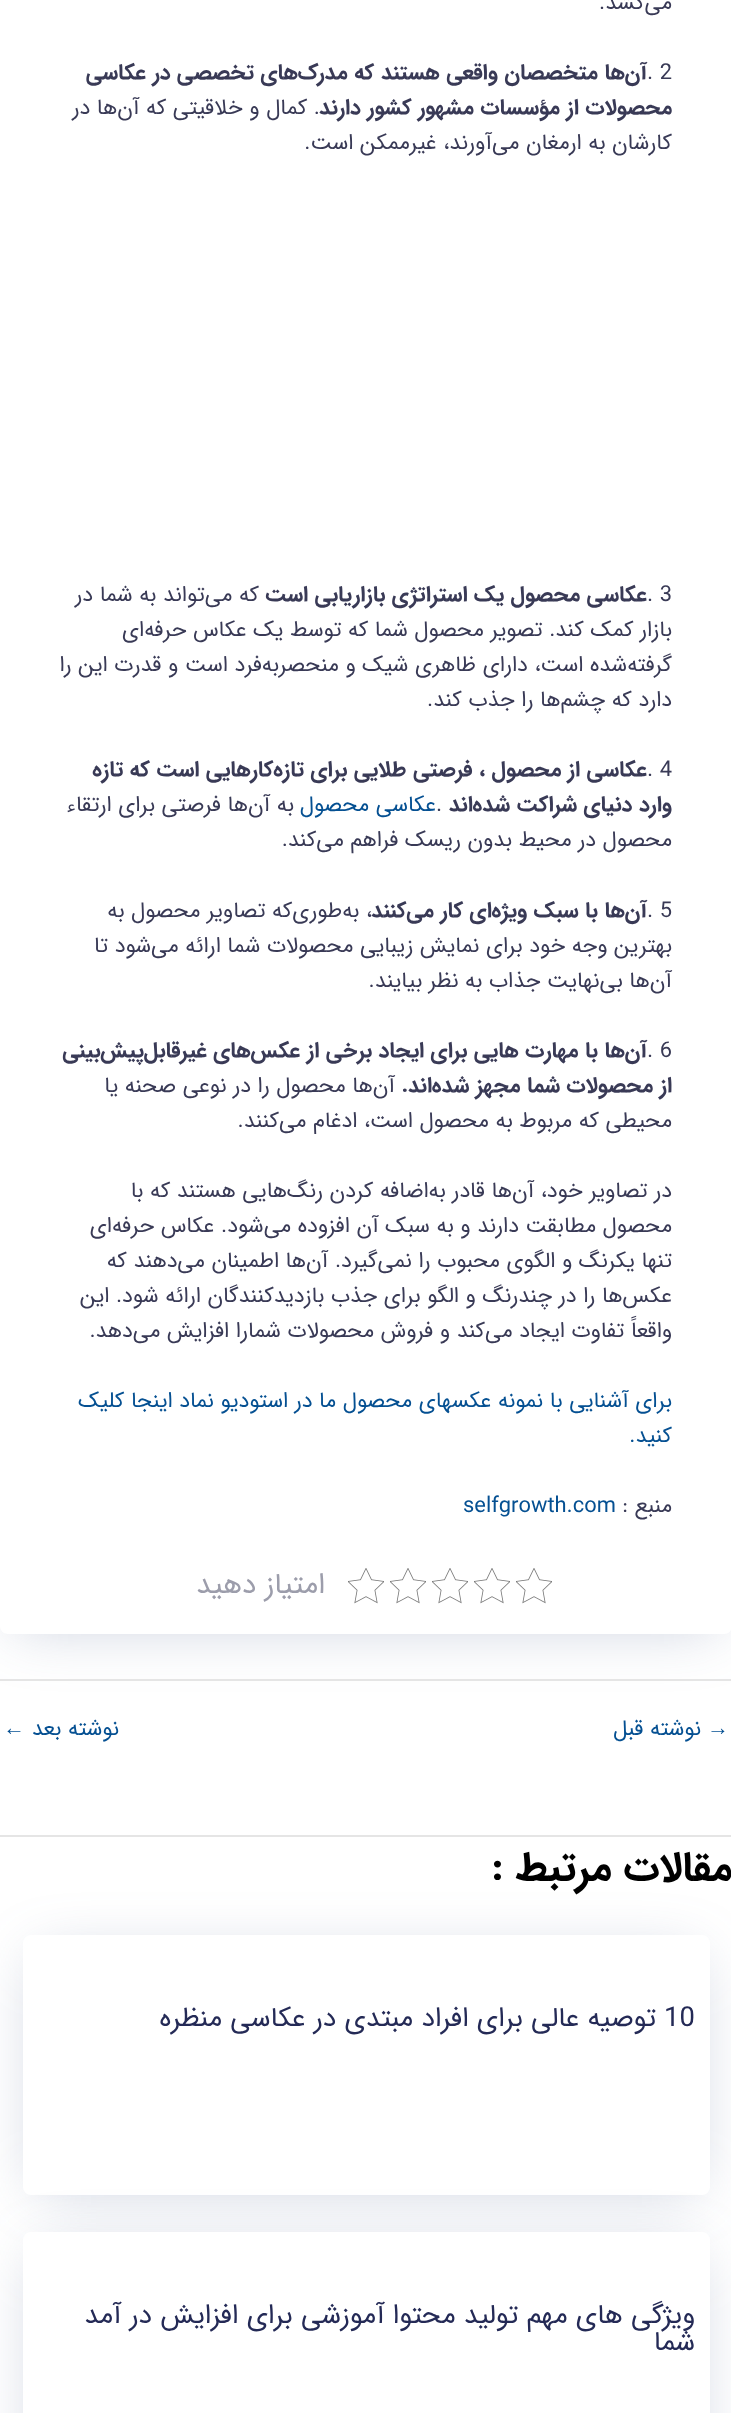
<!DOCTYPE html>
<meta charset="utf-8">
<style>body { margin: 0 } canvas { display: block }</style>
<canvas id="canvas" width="731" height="2413"></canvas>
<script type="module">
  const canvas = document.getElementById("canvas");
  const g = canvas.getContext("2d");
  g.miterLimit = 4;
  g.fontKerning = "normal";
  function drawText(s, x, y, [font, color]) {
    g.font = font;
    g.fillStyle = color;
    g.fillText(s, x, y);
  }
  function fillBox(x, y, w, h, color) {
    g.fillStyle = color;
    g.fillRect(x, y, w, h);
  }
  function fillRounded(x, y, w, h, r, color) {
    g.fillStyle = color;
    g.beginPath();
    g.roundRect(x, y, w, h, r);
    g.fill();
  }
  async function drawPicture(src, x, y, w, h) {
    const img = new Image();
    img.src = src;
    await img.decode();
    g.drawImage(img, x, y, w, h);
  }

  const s1 = ["21.9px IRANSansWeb", "#393A56"];
  const s2 = ["bold 21.9px IRANSansWeb", "#393A56"];
  const s3 = ["21.9px IRANSansWeb", "#055092"];
  const s4 = ["29px IRANSansWeb", "#9C9DAB"];
  const s5 = ["21.9px Liberation Sans", "#055092"];
  const s6 = ["bold 41px IRANSansWeb", "#000000"];
  const s7 = ["27.4px IRANSansWeb", "#242A56"];

  fillBox(0, 0, 731, 2413, "#FFFFFF");
  g.save();
  g.beginPath();
  g.moveTo(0, 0);
  g.lineTo(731, 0);
  g.lineTo(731, 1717);
  g.lineTo(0, 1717);
  g.closePath();
  g.moveTo(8, -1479);
  g.lineTo(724, -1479);
  g.bezierCurveTo(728.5, -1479, 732, -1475.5, 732, -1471);
  g.lineTo(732, 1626);
  g.bezierCurveTo(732, 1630.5, 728.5, 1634, 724, 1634);
  g.lineTo(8, 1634);
  g.bezierCurveTo(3.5, 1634, 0, 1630.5, 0, 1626);
  g.lineTo(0, -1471);
  g.bezierCurveTo(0, -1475.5, 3.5, -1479, 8, -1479);
  g.closePath();
  g.clip("evenodd");
  g.fillStyle = "rgba(86, 104, 146, 0.33)";
  g.filter = "blur(30px)";
  g.beginPath();
  g.rect(15, -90, 702, 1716);
  g.fill();
  g.filter = "none";
  g.restore();
  fillBox(30, 1633, 672, 1, "#FFFFFF");
  g.direction = "rtl";
  drawText("می‌کشد.", 672, 9, s1);
  g.direction = "ltr";
  drawText(". 2", 647, 79, s1);
  g.direction = "rtl";
  drawText("آن‌ها متخصصان واقعی هستند که مدرک‌های تخصصی در عکاسی", 647, 79, s2);
  drawText("محصولات از مؤسسات مشهور کشور دارند", 672, 114, s2);
  drawText(". کمال و خلاقیتی که آن‌ها در", 320, 114, s1);
  drawText("کارشان به ارمغان می‌آورند، غیرممکن است.", 672, 149, s1);
  g.direction = "ltr";
  drawText(". 3", 647, 601, s1);
  g.direction = "rtl";
  drawText("عکاسی محصول یک استراتژی بازاریابی است", 647, 601, s2);
  drawText("که می‌تواند به شما در", 259, 601, s1);
  drawText("بازار کمک کند. تصویر محصول شما که توسط یک عکاس حرفه‌ای", 672, 636, s1);
  drawText("گرفته‌شده است، دارای ظاهری شیک و منحصربه‌فرد است و قدرت این را", 672, 671, s1);
  drawText("دارد که چشم‌ها را جذب کند.", 672, 706, s1);
  g.direction = "ltr";
  drawText(". 4", 647, 776, s1);
  g.direction = "rtl";
  drawText("عکاسی از محصول ، فرصتی طلایی برای تازه‌کارهایی است که تازه‌", 647, 776, s2);
  drawText("وارد دنیای شراکت شده‌اند", 672, 811, s2);
  g.direction = "ltr";
  drawText(".", 436, 811, s1);
  g.direction = "rtl";
  drawText("عکاسی محصول", 436, 811, s3);
  drawText("به آن‌ها فرصتی برای ارتقاء", 294, 811, s1);
  drawText("محصول در محیط بدون ریسک فراهم می‌کند.", 672, 846, s1);
  g.direction = "ltr";
  drawText(". 5", 647, 917, s1);
  g.direction = "rtl";
  drawText("آن‌ها با سبک ویژه‌ای کار می‌کنند", 647, 917, s2);
  drawText("، به‌طوری‌که تصاویر محصول به", 372, 917, s1);
  drawText("بهترین وجه خود برای نمایش زیبایی محصولات شما ارائه می‌شود تا", 672, 952, s1);
  drawText("آن‌ها بی‌نهایت جذاب به نظر بیایند.", 672, 987, s1);
  g.direction = "ltr";
  drawText(". 6", 647, 1057, s1);
  g.direction = "rtl";
  drawText("آن‌ها با مهارت هایی برای ایجاد برخی از عکس‌های غیرقابل‌پیش‌بینی", 647, 1057, s2);
  drawText("از محصولات شما مجهز شده‌اند.", 672, 1092, s2);
  drawText("آن‌ها محصول را در نوعی صحنه یا", 395, 1092, s1);
  drawText("محیطی که مربوط به محصول است، ادغام می‌کنند.", 672, 1127, s1);
  drawText("در تصاویر خود، آن‌ها قادر به‌اضافه کردن رنگ‌هایی هستند که با", 672, 1197, s1);
  drawText("محصول مطابقت دارند و به سبک آن افزوده می‌شود. عکاس حرفه‌ای", 672, 1232, s1);
  drawText("تنها یکرنگ و الگوی محبوب را نمی‌گیرد. آن‌ها اطمینان می‌دهند که", 672, 1267, s1);
  drawText("عکس‌ها را در چندرنگ و الگو برای جذب بازدیدکنندگان ارائه شود. این", 672, 1302, s1);
  drawText("واقعاً تفاوت ایجاد می‌کند و فروش محصولات شمارا افزایش می‌دهد.", 672, 1337, s1);
  drawText("برای آشنایی با نمونه عکسهای محصول ما در استودیو نماد اینجا کلیک", 672, 1407, s3);
  drawText("کنید.", 672, 1442, s3);
  drawText("منبع :", 672, 1512, s1);
  g.direction = "ltr";
  drawText("selfgrowth.com", 463, 1512, s3);
  await drawPicture("pic1.png", 516, 1568, 36, 36);
  await drawPicture("pic1.png", 474, 1568, 36, 36);
  await drawPicture("pic1.png", 432, 1568, 36, 36);
  await drawPicture("pic1.png", 390, 1568, 36, 36);
  await drawPicture("pic1.png", 348, 1568, 36, 36);
  g.direction = "rtl";
  drawText("امتیاز دهید", 325, 1593, s4);
  fillBox(0, 1679, 731, 2, "#E5E5E5");
  g.direction = "ltr";
  drawText("→", 707, 1735, s5);
  g.direction = "rtl";
  drawText("نوشته قبل", 701, 1735, s3);
  drawText("نوشته بعد", 119, 1735, s3);
  g.direction = "ltr";
  drawText("←", 3, 1735, s5);
  fillBox(0, 1835, 731, 2, "#E5E5E5");
  g.direction = "rtl";
  drawText("مقالات مرتبط :", 732, 1880, s6);
  g.fillStyle = "rgba(86, 104, 146, 0.33)";
  g.filter = "blur(30px)";
  g.beginPath();
  g.rect(38, 1958, 657, 229);
  g.fill();
  g.filter = "none";
  fillRounded(23, 1935, 687, 260, 8, "#FFFFFF");
  g.direction = "ltr";
  drawText("10", 664, 2026, s7);
  g.direction = "rtl";
  drawText("توصیه عالی برای افراد مبتدی در عکاسی منظره", 656, 2026, s7);
  g.fillStyle = "rgba(86, 104, 146, 0.33)";
  g.filter = "blur(30px)";
  g.beginPath();
  g.rect(38, 2255, 657, 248);
  g.fill();
  g.filter = "none";
  fillRounded(23, 2232, 687, 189, 8, "#FFFFFF");
  drawText("ویژگی های مهم تولید محتوا آموزشی برای افزایش در آمد", 695, 2323, s7);
  drawText("شما", 695, 2350, s7);
</script>
